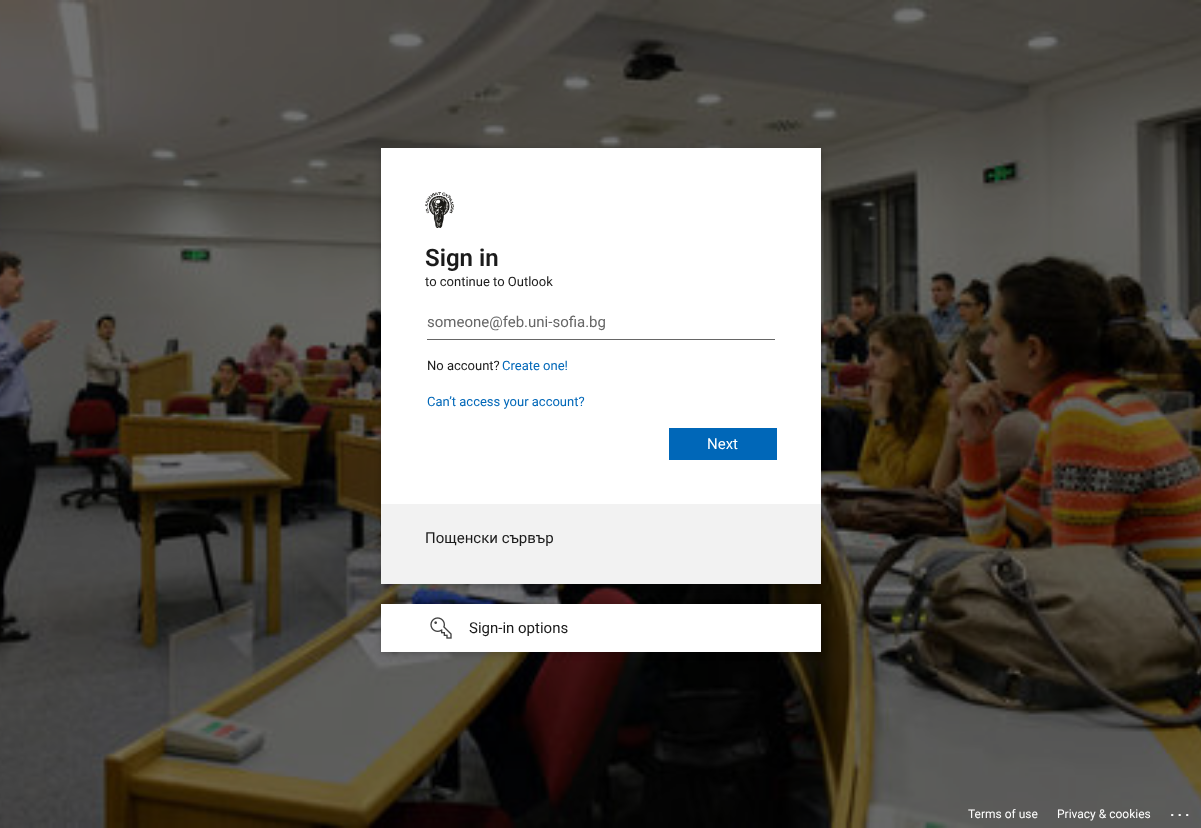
<!DOCTYPE html>
<meta charset="utf-8">
<style>body { margin: 0 } canvas { display: block }</style>
<canvas id="canvas" width="1201" height="828"></canvas>
<script type="module">
  const canvas = document.getElementById("canvas");
  const g = canvas.getContext("2d");
  g.miterLimit = 4;
  g.fontKerning = "normal";
  function drawText(s, x, y, [font, color]) {
    g.font = font;
    g.fillStyle = color;
    g.fillText(s, x, y);
  }
  function fillBox(x, y, w, h, color) {
    g.fillStyle = color;
    g.fillRect(x, y, w, h);
  }
  async function drawPicture(src, x, y, w, h) {
    const img = new Image();
    img.src = src;
    await img.decode();
    g.drawImage(img, x, y, w, h);
  }

  const s1 = ["600 24px Roboto", "#1B1B1B"];
  const s2 = ["13px Roboto", "#1B1B1B"];
  const s3 = ["15px Roboto", "#666666"];
  const s4 = ["13px Roboto", "#0067B8"];
  const s5 = ["15px Roboto", "#FFFFFF"];
  const s6 = ["15px Roboto", "#1B1B1B"];
  const s7 = ["12px Roboto", "#FFFFFF"];
  const s8 = ["600 16px Roboto", "#FFFFFF"];

  fillBox(0, 0, 1201, 828, "#FFFFFF");
  await drawPicture("pic1.png", 0, 0, 1201, 828);
  g.fillStyle = "rgba(0, 0, 0, 0.2)";
  g.filter = "blur(3px)";
  g.beginPath();
  g.rect(381, 150, 440, 436);
  g.fill();
  g.filter = "none";
  fillBox(381, 148, 440, 356, "#FFFFFF");
  await drawPicture("pic2.png", 425, 192, 29, 36);
  drawText("Sign in", 425, 266, s1);
  drawText("to continue to Outlook", 425, 286, s2);
  fillBox(427, 339, 348, 1, "#666666");
  drawText("someone@feb.uni-sofia.bg", 427, 327, s3);
  drawText("No account?", 427, 370, s2);
  drawText("Create one!", 502, 370, s4);
  drawText("Can’t access your account?", 427, 406, s4);
  fillBox(669, 428, 108, 32, "#0067B8");
  drawText("Next", 707, 449, s5);
  fillBox(381, 504, 440, 80, "#F2F2F2");
  drawText("Пощенски сървър", 425, 543, s6);
  g.fillStyle = "rgba(0, 0, 0, 0.2)";
  g.filter = "blur(3px)";
  g.beginPath();
  g.rect(381, 606, 440, 48);
  g.fill();
  g.filter = "none";
  fillBox(381, 604, 440, 48, "#FFFFFF");
  await drawPicture("pic3.png", 430, 617, 22, 22);
  drawText("Sign-in options", 469, 633, s6);
  drawText("Terms of use", 968, 818, s7);
  drawText("Privacy & cookies", 1057, 818, s7);
  g.letterSpacing = "3px";
  drawText("...", 1170, 816, s8);
</script>
